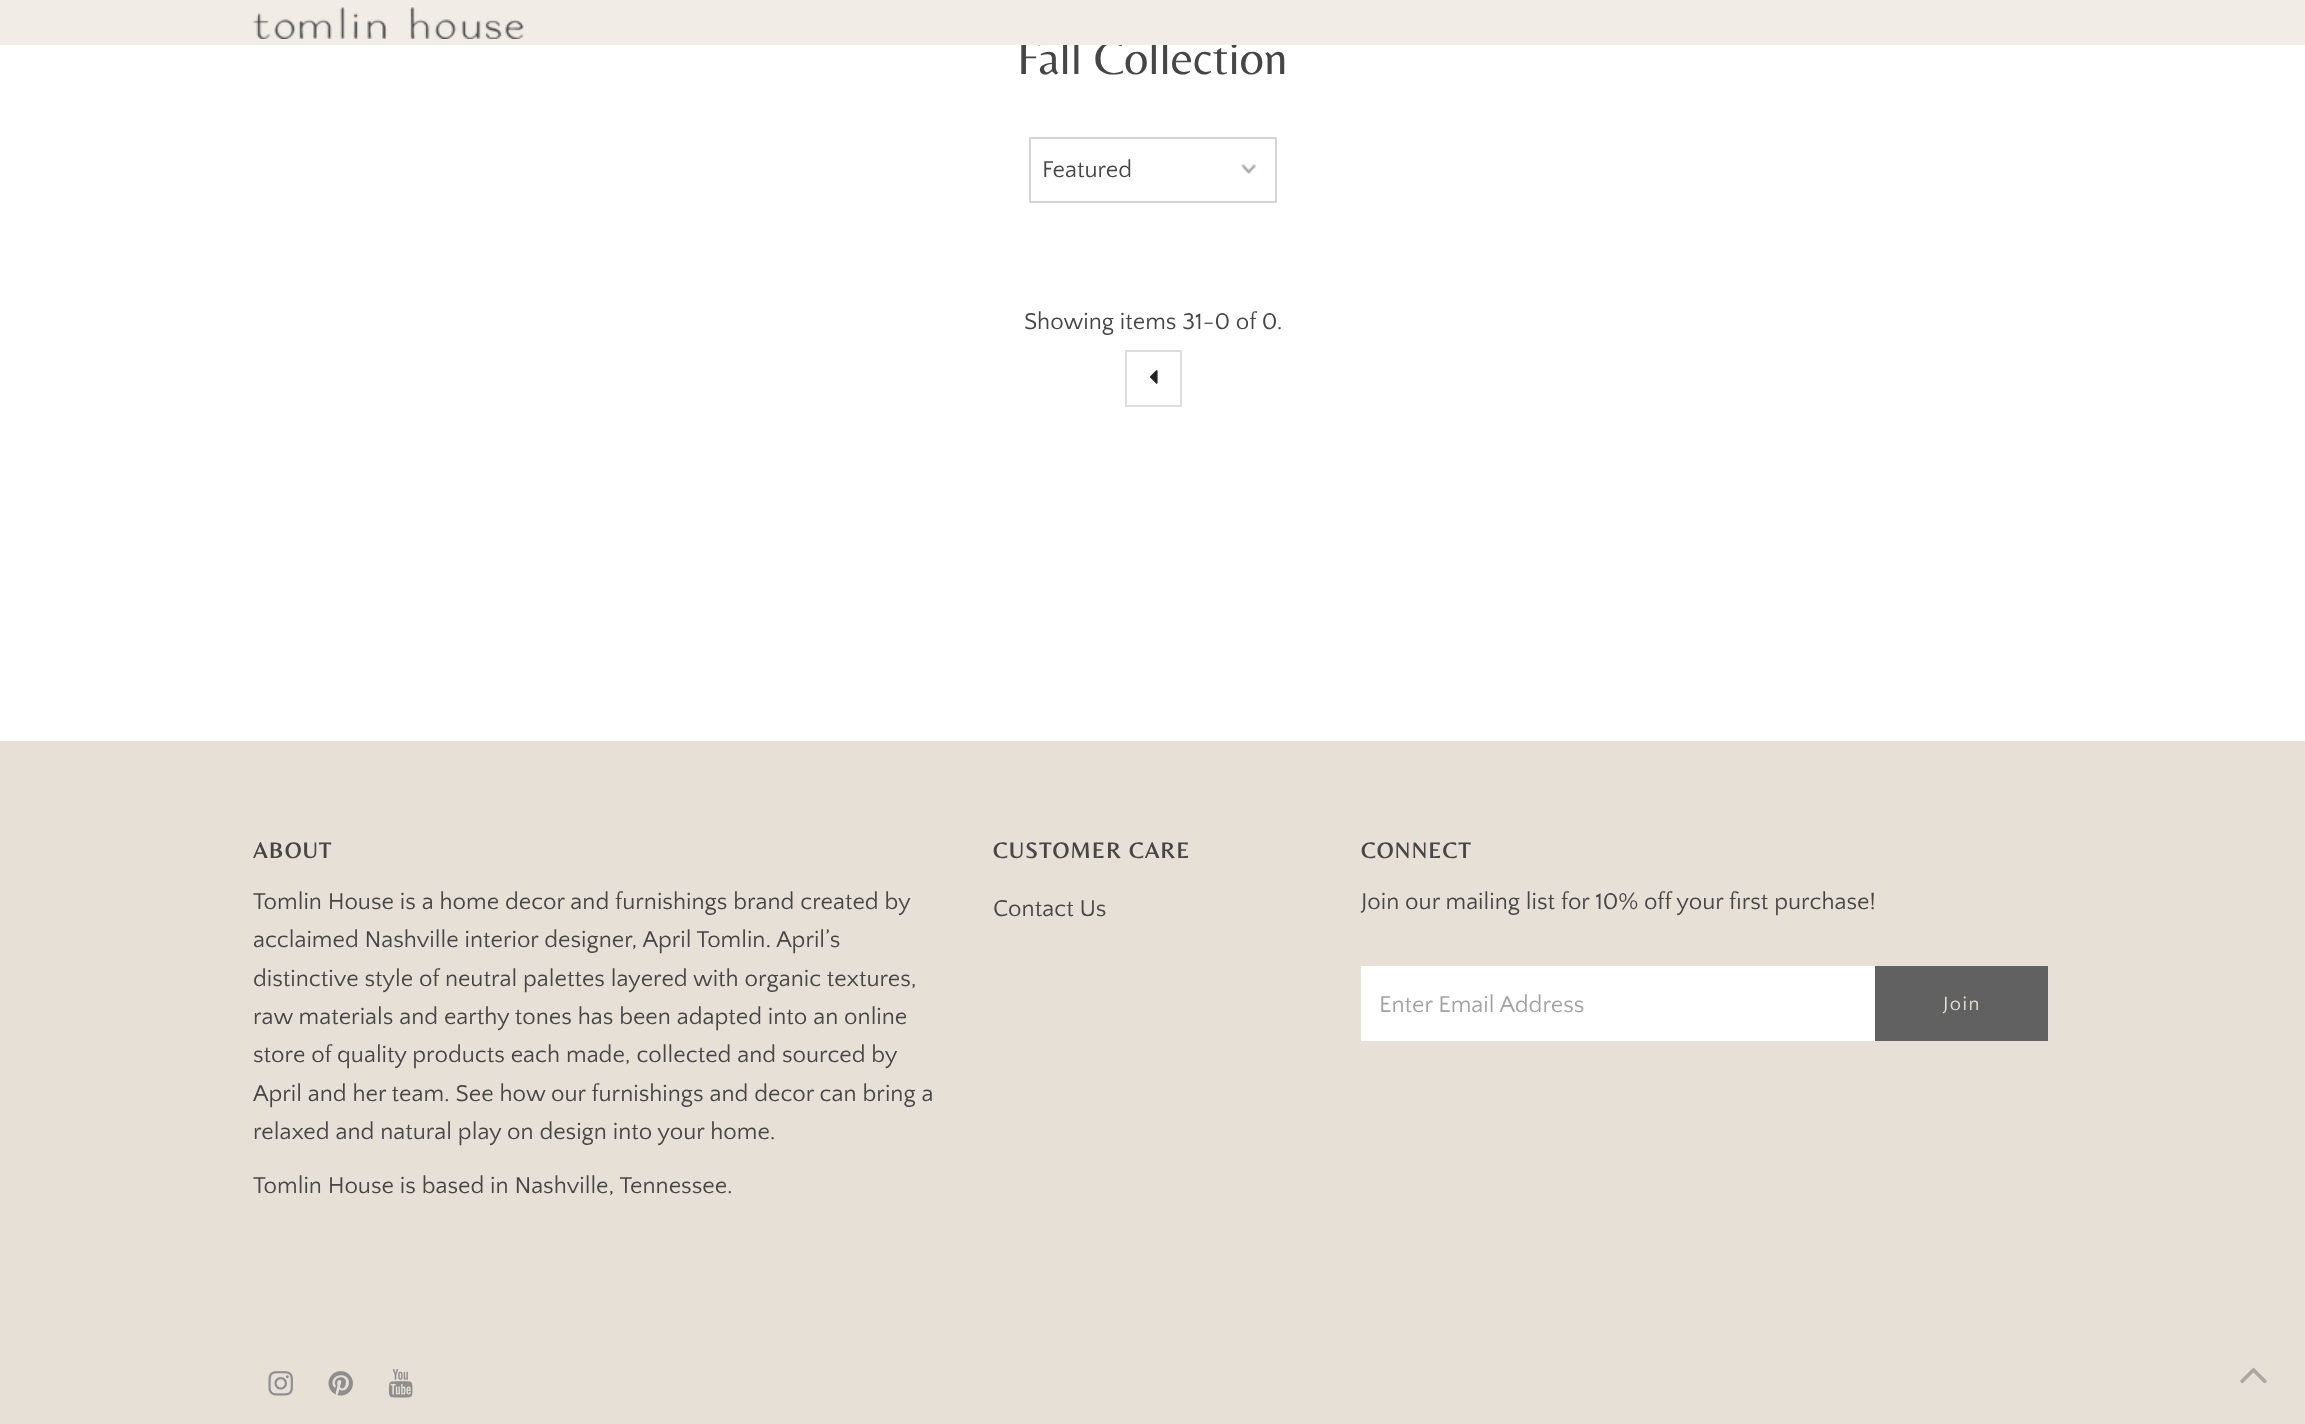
<!DOCTYPE html>
<meta charset="utf-8">
<style>body { margin: 0 } canvas { display: block }</style>
<canvas id="canvas" width="2305" height="1424"></canvas>
<script type="module">
  const canvas = document.getElementById("canvas");
  const g = canvas.getContext("2d");
  g.miterLimit = 4;
  g.fontKerning = "normal";
  function drawText(s, x, y, [font, color]) {
    g.font = font;
    g.fillStyle = color;
    g.fillText(s, x, y);
  }
  function fillBox(x, y, w, h, color) {
    g.fillStyle = color;
    g.fillRect(x, y, w, h);
  }
  async function drawPicture(src, x, y, w, h) {
    const img = new Image();
    img.src = src;
    await img.decode();
    g.drawImage(img, x, y, w, h);
  }

  const s1 = ["48px Belleza", "#464646"];
  const s2 = ["24px Quattrocento Sans", "#464646"];
  const s3 = ["bold 22.5px Belleza", "#464646"];
  const s4 = ["24px Quattrocento Sans", "#A2A2A2"];
  const s5 = ["20px Quattrocento Sans", "#E6E0D7"];

  fillBox(0, 0, 2305, 1424, "#FFFFFF");
  drawText("Fall Collection", 1017, 74, s1);
  fillBox(0, 0, 2305, 45, "#F1ECE6");
  await drawPicture("pic1.png", 253, 7, 271, 32);
  await drawPicture("pic2.png", 1241, 164, 15, 10);
  g.beginPath();
  g.roundRect(1030, 138, 246, 64, 0.5);
  g.strokeStyle = "#D5D5D5";
  g.lineWidth = 2;
  g.stroke();
  drawText("Featured", 1042, 177, s2);
  drawText("Showing items 31-0 of 0.", 1024, 329, s2);
  g.strokeStyle = "#DDDDDD";
  g.strokeRect(1126, 351, 55, 55);
  await drawPicture("pic3.png", 1149, 370, 9, 14);
  fillBox(0, 741, 2305, 683, "#E6E0D7");
  g.letterSpacing = "1.5px";
  drawText("ABOUT", 253, 858, s3);
  g.letterSpacing = "0px";
  drawText("Tomlin House is a home decor and furnishings brand created by", 253, 909, s2);
  drawText("acclaimed Nashville interior designer, April Tomlin. April’s", 253, 947, s2);
  drawText("distinctive style of neutral palettes layered with organic textures,", 253, 986, s2);
  drawText("raw materials and earthy tones has been adapted into an online", 253, 1024, s2);
  drawText("store of quality products each made, collected and sourced by", 253, 1062, s2);
  drawText("April and her team. See how our furnishings and decor can bring a", 253, 1101, s2);
  drawText("relaxed and natural play on design into your home.", 253, 1139, s2);
  drawText("Tomlin House is based in Nashville, Tennessee.", 253, 1193, s2);
  g.letterSpacing = "1.5px";
  drawText("CUSTOMER CARE", 993, 858, s3);
  g.letterSpacing = "0px";
  drawText("Contact Us", 993, 916, s2);
  g.letterSpacing = "1.5px";
  drawText("CONNECT", 1361, 858, s3);
  g.letterSpacing = "0px";
  drawText("Join our mailing list for 10% off your first purchase!", 1361, 909, s2);
  fillBox(1361, 966, 514, 75, "#FFFFFF");
  drawText("Enter Email Address", 1379, 1012, s4);
  fillBox(1875, 966, 173, 75, "#616161");
  g.letterSpacing = "1.5px";
  drawText("Join", 1943, 1010, s5);
  await drawPicture("pic4.png", 268, 1371, 25, 25);
  await drawPicture("pic5.png", 328, 1371, 25, 25);
  await drawPicture("pic6.png", 388, 1369, 25, 29);
  await drawPicture("pic7.png", 2240, 1367, 27, 17);
</script>
